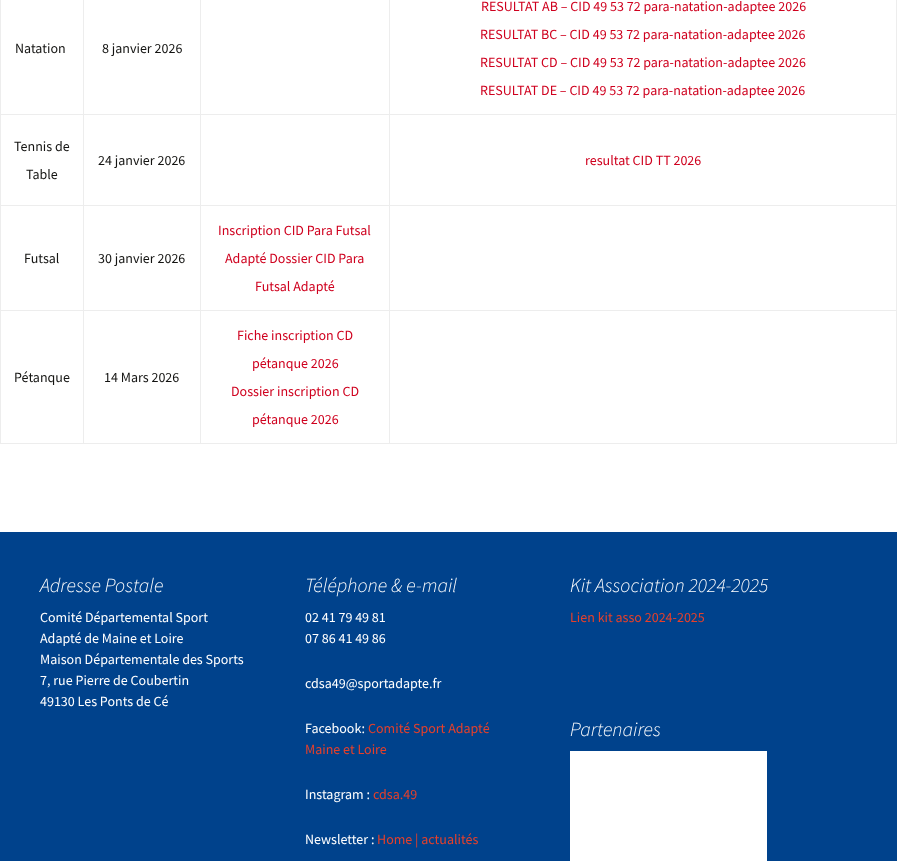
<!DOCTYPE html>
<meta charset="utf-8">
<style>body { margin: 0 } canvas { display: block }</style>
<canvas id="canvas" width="897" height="861"></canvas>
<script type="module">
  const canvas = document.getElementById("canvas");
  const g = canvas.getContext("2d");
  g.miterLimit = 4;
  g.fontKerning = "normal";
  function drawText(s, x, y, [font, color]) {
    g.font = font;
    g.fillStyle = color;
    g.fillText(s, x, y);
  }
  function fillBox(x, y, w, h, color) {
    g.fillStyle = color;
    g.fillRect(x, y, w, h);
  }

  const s1 = ["14px Source Sans Pro", "#141412"];
  const s2 = ["14px Source Sans Pro", "#CF001E"];
  const s3 = ["italic 300 20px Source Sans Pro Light", "#FFFFFF"];
  const s4 = ["14px Source Sans Pro", "#FFFFFF"];
  const s5 = ["14px Source Sans Pro", "#E6402A"];

  fillBox(0, 0, 897, 861, "#FFFFFF");
  drawText("Natation", 15, 53, s1);
  fillBox(389, 114, 508, 1, "#EDEDED");
  fillBox(389, 205, 508, 1, "#EDEDED");
  fillBox(389, 310, 508, 1, "#EDEDED");
  fillBox(896, 310, 1, 134, "#EDEDED");
  fillBox(389, 443, 508, 1, "#EDEDED");
  fillBox(389, 310, 1, 134, "#EDEDED");
  fillBox(200, 310, 190, 1, "#EDEDED");
  fillBox(389, 205, 1, 106, "#EDEDED");
  fillBox(200, 205, 190, 1, "#EDEDED");
  fillBox(389, 114, 1, 92, "#EDEDED");
  fillBox(200, 114, 190, 1, "#EDEDED");
  fillBox(200, 443, 190, 1, "#EDEDED");
  fillBox(200, 310, 1, 134, "#EDEDED");
  fillBox(83, 310, 118, 1, "#EDEDED");
  fillBox(200, 205, 1, 106, "#EDEDED");
  fillBox(83, 205, 118, 1, "#EDEDED");
  fillBox(200, 114, 1, 92, "#EDEDED");
  fillBox(83, 114, 118, 1, "#EDEDED");
  fillBox(83, 443, 118, 1, "#EDEDED");
  fillBox(83, 310, 1, 134, "#EDEDED");
  fillBox(0, 310, 84, 1, "#EDEDED");
  fillBox(83, 205, 1, 106, "#EDEDED");
  fillBox(0, 205, 84, 1, "#EDEDED");
  fillBox(83, 114, 1, 92, "#EDEDED");
  fillBox(0, 114, 84, 1, "#EDEDED");
  fillBox(83, 0, 1, 115, "#EDEDED");
  drawText("8 janvier 2026", 102, 53, s1);
  fillBox(200, 0, 1, 115, "#EDEDED");
  fillBox(389, 0, 1, 115, "#EDEDED");
  drawText("RESULTAT AB – CID 49 53 72 para-natation-adaptee 2026", 481, 11, s2);
  drawText("RESULTAT BC – CID 49 53 72 para-natation-adaptee 2026", 480, 39, s2);
  drawText("RESULTAT CD – CID 49 53 72 para-natation-adaptee 2026", 480, 67, s2);
  drawText("RESULTAT DE – CID 49 53 72 para-natation-adaptee 2026", 480, 95, s2);
  fillBox(0, 443, 84, 1, "#EDEDED");
  fillBox(0, 310, 1, 134, "#EDEDED");
  fillBox(0, 205, 1, 106, "#EDEDED");
  fillBox(0, 0, 1, 206, "#EDEDED");
  drawText("Tennis de", 14, 151, s1);
  drawText("Table", 26, 179, s1);
  drawText("24 janvier 2026", 98, 165, s1);
  fillBox(896, 205, 1, 106, "#EDEDED");
  fillBox(896, 0, 1, 206, "#EDEDED");
  drawText("resultat CID TT 2026", 585, 165, s2);
  drawText("Futsal", 24, 263, s1);
  drawText("30 janvier 2026", 98, 263, s1);
  drawText("Inscription CID Para Futsal", 218, 235, s2);
  drawText("Adapté Dossier CID Para", 225, 263, s2);
  drawText("Futsal Adapté", 255, 291, s2);
  drawText("Pétanque", 14, 382, s1);
  drawText("14 Mars 2026", 104, 382, s1);
  drawText("Fiche inscription CD", 237, 340, s2);
  drawText("pétanque 2026", 252, 368, s2);
  drawText("Dossier inscription CD", 231, 396, s2);
  drawText("pétanque 2026", 252, 424, s2);
  fillBox(0, 532, 897, 329, "#00428C");
  drawText("Adresse Postale", 40, 592, s3);
  drawText("Comité Départemental Sport", 40, 622, s4);
  drawText("Adapté de Maine et Loire", 40, 643, s4);
  drawText("Maison Départementale des Sports", 40, 664, s4);
  drawText("7, rue Pierre de Coubertin", 40, 685, s4);
  drawText("49130 Les Ponts de Cé", 40, 706, s4);
  drawText("Téléphone & e-mail", 305, 592, s3);
  drawText("02 41 79 49 81", 305, 622, s4);
  drawText("07 86 41 49 86", 305, 643, s4);
  drawText("cdsa49@sportadapte.fr", 305, 688, s4);
  drawText("Facebook:", 305, 733, s4);
  drawText("Comité Sport Adapté", 368, 733, s5);
  drawText("Maine et Loire", 305, 754, s5);
  drawText("Instagram :", 305, 799, s4);
  drawText("cdsa.49", 373, 799, s5);
  drawText("Newsletter :", 305, 844, s4);
  drawText("Home | actualités", 377, 844, s5);
  drawText("Kit Association 2024-2025", 570, 592, s3);
  drawText("Lien kit asso 2024-2025", 570, 622, s5);
  drawText("Partenaires", 570, 736, s3);
  fillBox(570, 751, 197, 110, "#FFFFFF");
</script>
